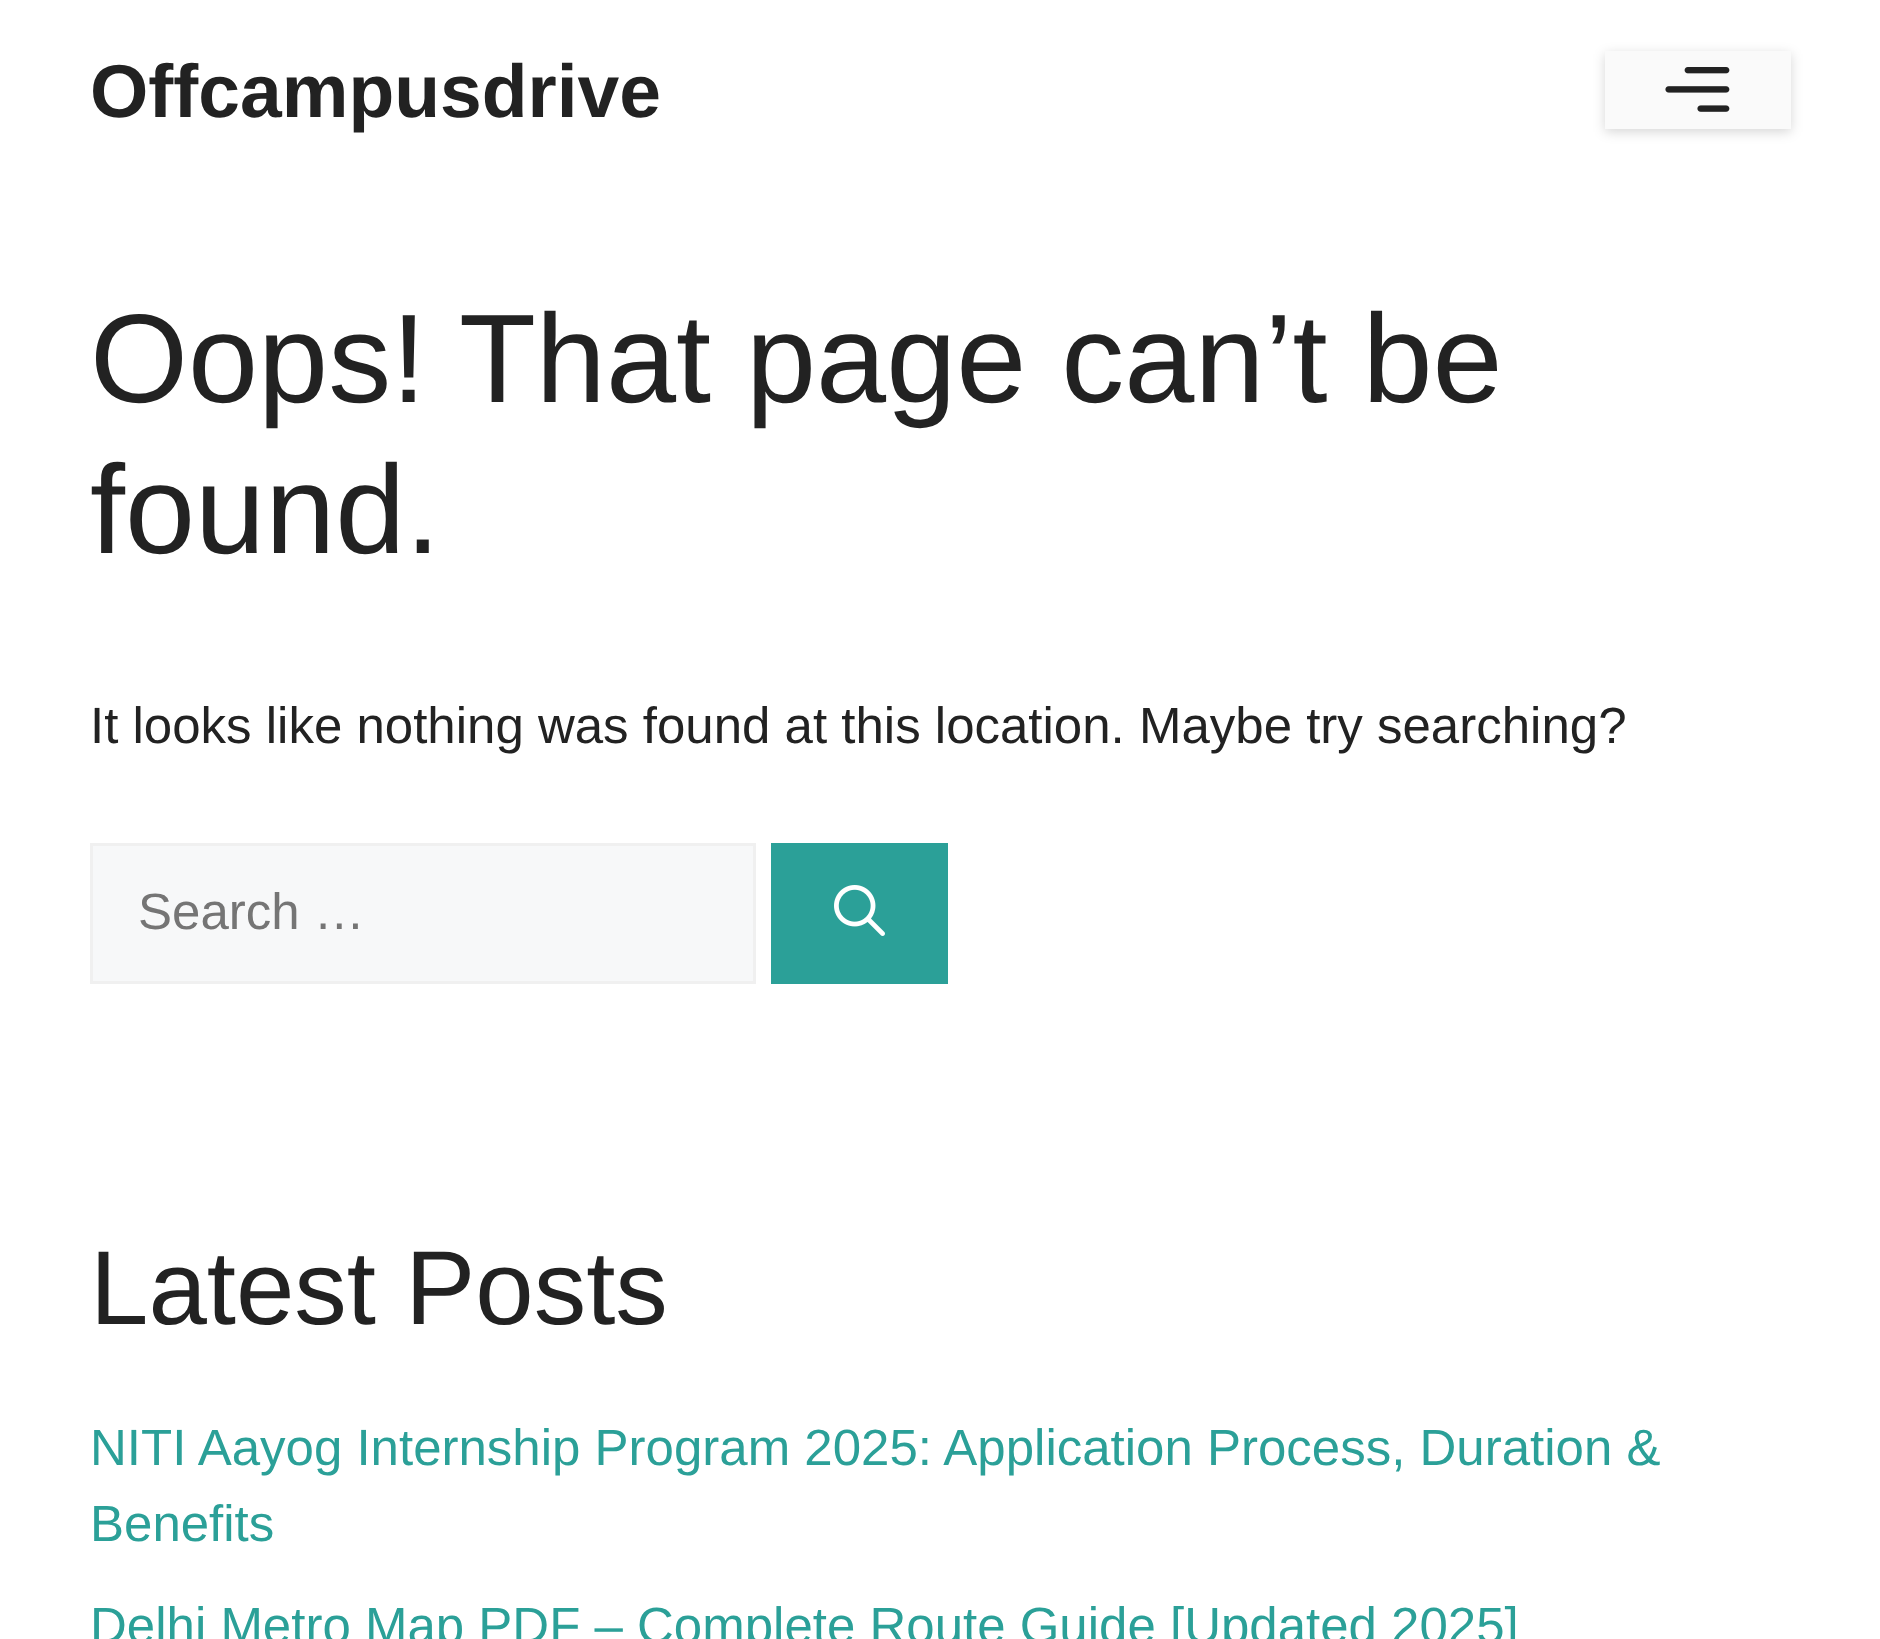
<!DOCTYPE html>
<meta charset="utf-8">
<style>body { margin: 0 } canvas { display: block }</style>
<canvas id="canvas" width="1880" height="1639"></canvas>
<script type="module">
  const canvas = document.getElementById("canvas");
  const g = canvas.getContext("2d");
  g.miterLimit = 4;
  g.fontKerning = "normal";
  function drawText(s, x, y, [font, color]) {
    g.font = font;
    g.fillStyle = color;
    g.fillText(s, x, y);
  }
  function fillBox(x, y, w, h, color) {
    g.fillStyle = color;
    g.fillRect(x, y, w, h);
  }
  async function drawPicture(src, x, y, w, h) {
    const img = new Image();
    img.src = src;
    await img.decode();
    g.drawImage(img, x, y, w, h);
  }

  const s1 = ["bold 75px Liberation Sans", "#222222"];
  const s2 = ["126px Liberation Sans", "#222222"];
  const s3 = ["51px Liberation Sans", "#222222"];
  const s4 = ["51px Liberation Sans", "#757575"];
  const s5 = ["105px Liberation Sans", "#222222"];
  const s6 = ["51px Liberation Sans", "#2BA098"];

  fillBox(0, 0, 1880, 1639, "#FFFFFF");
  drawText("Offcampusdrive", 90, 117, s1);
  g.fillStyle = "rgba(0, 0, 0, 0.16)";
  g.filter = "blur(6px)";
  g.beginPath();
  g.rect(1605, 54, 186, 78);
  g.fill();
  g.filter = "none";
  fillBox(1605, 51, 186, 78, "#FAFAFA");
  await drawPicture("pic1.png", 1665, 67, 65, 45);
  drawText("Oops! That page can’t be", 90, 402, s2);
  drawText("found.", 90, 553, s2);
  drawText("It looks like nothing was found at this location. Maybe try searching?", 90, 743, s3);
  g.fillStyle = "#F7F8F9";
  g.beginPath();
  g.rect(91.5, 844.5, 663, 138);
  g.fill();
  g.strokeStyle = "#F0F0F0";
  g.lineWidth = 3;
  g.stroke();
  drawText("Search …", 138, 929, s4);
  fillBox(771, 843, 177, 141, "#2BA098");
  await drawPicture("pic2.png", 834, 885, 51, 51);
  drawText("Latest Posts", 90, 1324, s5);
  drawText("NITI Aayog Internship Program 2025: Application Process, Duration &", 90, 1465, s6);
  drawText("Benefits", 90, 1541, s6);
  drawText("Delhi Metro Map PDF – Complete Route Guide [Updated 2025]", 90, 1643, s6);
</script>
